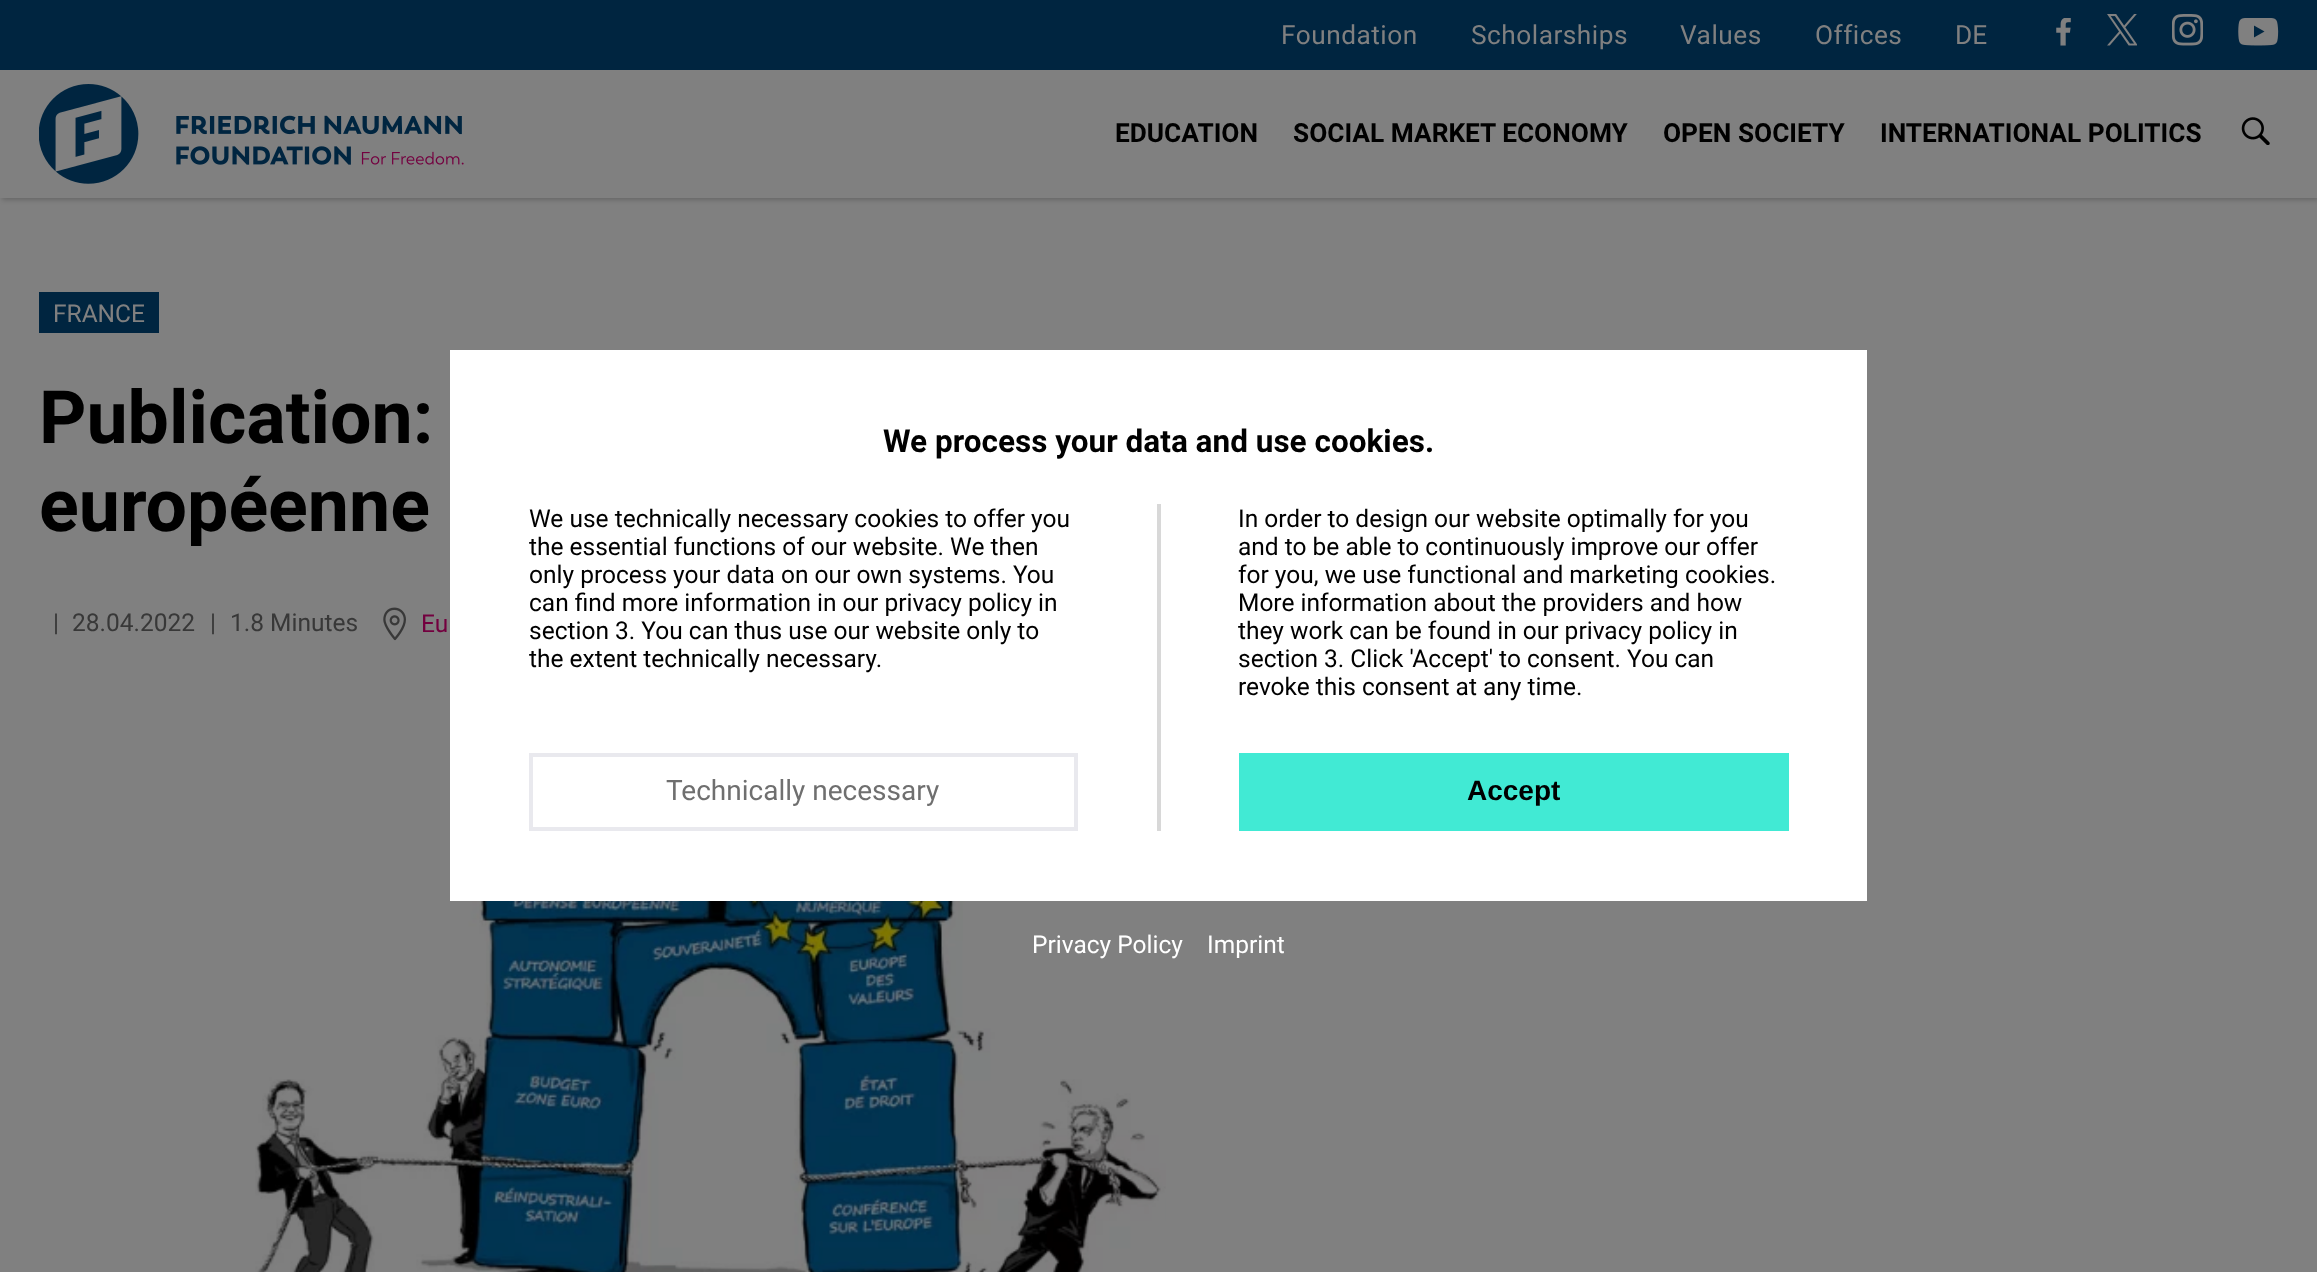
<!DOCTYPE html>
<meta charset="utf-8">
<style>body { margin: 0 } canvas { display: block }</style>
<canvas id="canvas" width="2317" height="1272"></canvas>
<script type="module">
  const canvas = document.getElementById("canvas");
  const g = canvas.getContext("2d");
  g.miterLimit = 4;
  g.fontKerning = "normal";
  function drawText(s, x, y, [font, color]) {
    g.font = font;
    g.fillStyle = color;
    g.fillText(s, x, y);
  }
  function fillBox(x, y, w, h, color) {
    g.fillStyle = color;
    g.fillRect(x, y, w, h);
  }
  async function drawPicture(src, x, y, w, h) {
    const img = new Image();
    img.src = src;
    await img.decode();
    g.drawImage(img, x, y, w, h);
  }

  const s1 = ["26.25px Roboto", "#808080"];
  const s2 = ["bold 26.25px Roboto", "#000000"];
  const s3 = ["24.5px Roboto", "#808080"];
  const s4 = ["bold 73.5px Roboto", "#000000"];
  const s5 = ["24.5px Roboto", "#383838"];
  const s6 = ["24.5px Roboto", "#73003F"];
  const s7 = ["bold 31.5px Roboto", "#000000"];
  const s8 = ["24.5px Roboto", "#000000"];
  const s9 = ["28px Roboto", "#6F6F6F"];
  const s10 = ["bold 28px Liberation Sans", "#000000"];
  const s11 = ["24.5px Roboto", "#FFFFFF"];

  fillBox(0, 0, 2317, 1272, "#808080");
  g.fillStyle = "rgba(0, 0, 0, 0.2)";
  g.filter = "blur(2.5px)";
  g.beginPath();
  g.rect(2, 2, 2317, 198);
  g.fill();
  g.filter = "none";
  fillBox(0, 70, 2317, 128, "#808080");
  fillBox(0, 0, 2317, 70, "#002540");
  g.letterSpacing = "0.5px";
  drawText("Foundation", 1281, 44, s1);
  drawText("Scholarships", 1471, 44, s1);
  drawText("Values", 1680, 44, s1);
  drawText("Offices", 1815, 44, s1);
  g.letterSpacing = "0px";
  drawText("DE", 1955, 44, s1);
  await drawPicture("pic1.png", 2056, 18, 15, 28);
  await drawPicture("pic2.png", 2107, 14, 30, 32);
  await drawPicture("pic3.png", 2172, 14, 31, 32);
  await drawPicture("pic4.png", 2238, 18, 41, 28);
  await drawPicture("pic5.png", 39, 84, 425, 100);
  drawText("EDUCATION", 1115, 142, s2);
  drawText("SOCIAL MARKET ECONOMY", 1293, 142, s2);
  drawText("OPEN SOCIETY", 1663, 142, s2);
  drawText("INTERNATIONAL POLITICS", 1880, 142, s2);
  await drawPicture("pic6.png", 2241, 117, 29, 28);
  fillBox(39, 292, 120, 41, "#002540");
  drawText("FRANCE", 53, 322, s3);
  drawText("Publication:", 39, 443, s4);
  drawText("européenne", 39, 531, s4);
  drawText("|", 53, 631, s5);
  drawText("28.04.2022", 72, 631, s5);
  drawText("|", 210, 631, s5);
  drawText("1.8 Minutes", 230, 631, s5);
  await drawPicture("pic7.png", 383, 607, 23, 34);
  drawText("Eu", 421, 632, s6);
  await drawPicture("pic8.png", 255, 709, 911, 563);
  fillBox(450, 350, 1417, 551, "#FFFFFF");
  drawText("We process your data and use cookies.", 883, 452, s7);
  fillBox(1157, 504, 4, 327, "#D8D8D8");
  drawText("We use technically necessary cookies to offer you", 529, 527, s8);
  drawText("the essential functions of our website. We then", 529, 555, s8);
  drawText("only process your data on our own systems. You", 529, 583, s8);
  drawText("can find more information in our privacy policy in", 529, 611, s8);
  drawText("section 3. You can thus use our website only to", 529, 639, s8);
  drawText("the extent technically necessary.", 529, 667, s8);
  g.strokeStyle = "#E9E9EE";
  g.lineWidth = 4;
  g.strokeRect(531, 755, 545, 74);
  drawText("Technically necessary", 666, 800, s9);
  drawText("In order to design our website optimally for you", 1238, 527, s8);
  drawText("and to be able to continuously improve our offer", 1238, 555, s8);
  drawText("for you, we use functional and marketing cookies.", 1238, 583, s8);
  drawText("More information about the providers and how", 1238, 611, s8);
  drawText("they work can be found in our privacy policy in", 1238, 639, s8);
  drawText("section 3. Click 'Accept' to consent. You can", 1238, 667, s8);
  drawText("revoke this consent at any time.", 1238, 695, s8);
  fillBox(1239, 753, 550, 78, "#41EAD4");
  drawText("Accept", 1467, 800, s10);
  drawText("Privacy Policy", 1032, 953, s11);
  drawText("Imprint", 1207, 953, s11);
</script>
